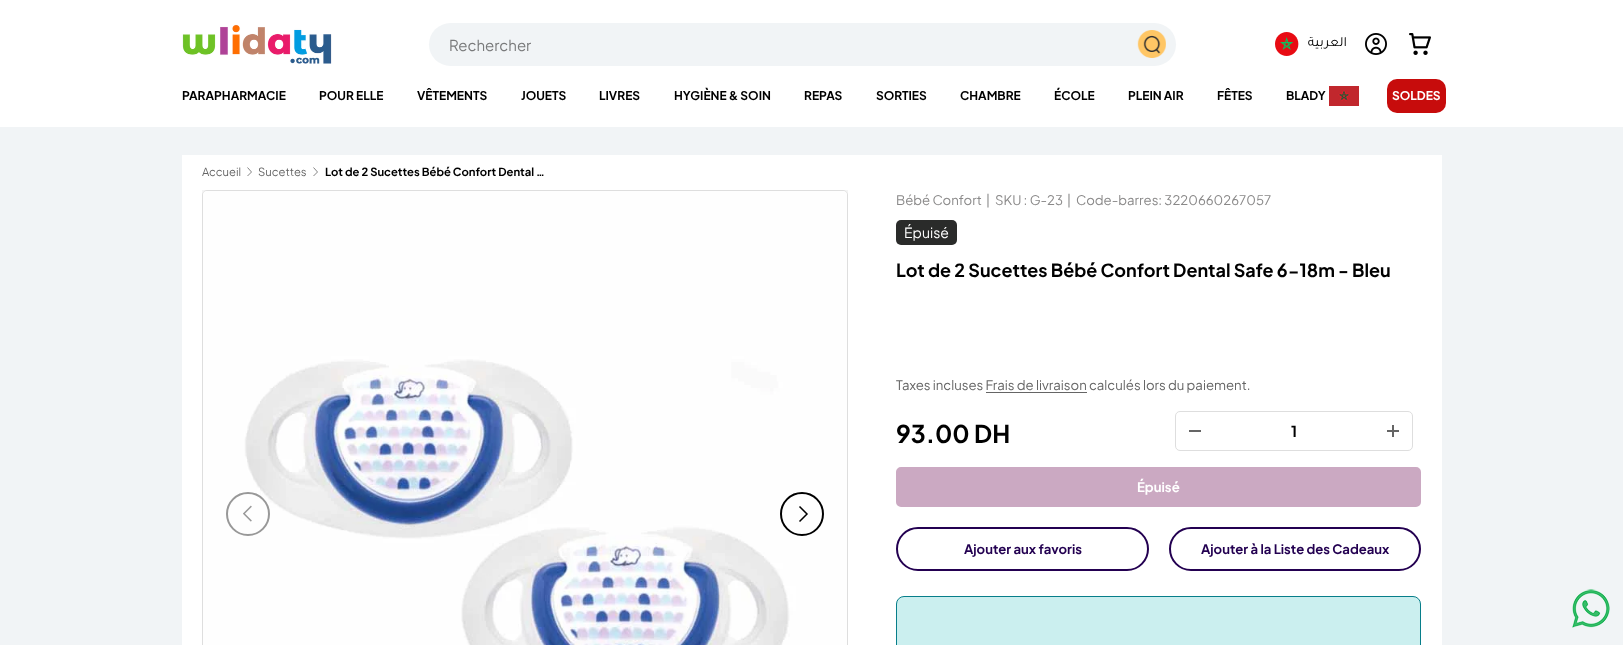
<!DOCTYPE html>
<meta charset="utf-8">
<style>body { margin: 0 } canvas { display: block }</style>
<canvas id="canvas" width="1623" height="645"></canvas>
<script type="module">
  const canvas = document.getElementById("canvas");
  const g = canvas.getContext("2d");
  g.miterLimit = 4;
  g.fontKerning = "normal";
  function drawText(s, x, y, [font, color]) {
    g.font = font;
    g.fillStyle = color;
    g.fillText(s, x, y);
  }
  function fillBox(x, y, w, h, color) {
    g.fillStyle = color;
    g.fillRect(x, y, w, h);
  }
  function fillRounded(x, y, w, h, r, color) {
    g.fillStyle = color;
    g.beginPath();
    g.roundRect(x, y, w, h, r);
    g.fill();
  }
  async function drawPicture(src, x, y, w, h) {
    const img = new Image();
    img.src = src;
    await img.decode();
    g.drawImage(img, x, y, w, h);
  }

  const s1 = ["15px Plus Jakarta Sans", "#797A7B"];
  const s2 = ["14px Tajawal", "#000000"];
  const s3 = ["bold 12px Plus Jakarta Sans", "#000000"];
  const s4 = ["bold 12px Plus Jakarta Sans", "#FFFFFF"];
  const s5 = ["11.25px Plus Jakarta Sans", "#656565"];
  const s6 = ["bold 11.25px Plus Jakarta Sans", "#000000"];
  const s7 = ["13.2px Plus Jakarta Sans", "#8A8989"];
  const s8 = ["14px Plus Jakarta Sans", "#FFFFFF"];
  const s9 = ["bold 18px Plus Jakarta Sans", "#000000"];
  const s10 = ["13.2px Plus Jakarta Sans", "#656565"];
  const s11 = ["bold 24.5px Plus Jakarta Sans", "#000000"];
  const s12 = ["bold 15px Plus Jakarta Sans", "#000000"];
  const s13 = ["bold 13.2px Plus Jakarta Sans", "#FFFFFF"];
  const s14 = ["bold 13.1px Plus Jakarta Sans", "#230051"];

  fillBox(0, 0, 1623, 645, "#FFFFFF");
  await drawPicture("pic1.png", 182, 24, 150, 40);
  fillRounded(429, 23, 747, 43, 21.5, "#F1F4F6");
  drawText("Rechercher", 449, 51, s1);
  await drawPicture("pic2.png", 1137, 30, 29, 28);
  await drawPicture("pic3.png", 1275, 32, 24, 24);
  g.direction = "rtl";
  drawText("العربية", 1347, 46, s2);
  await drawPicture("pic4.png", 1365, 33, 22, 22);
  await drawPicture("pic5.png", 1409, 33, 22, 22);
  g.direction = "ltr";
  drawText("PARAPHARMACIE", 182, 100, s3);
  drawText("POUR ELLE", 319, 100, s3);
  drawText("VÊTEMENTS", 417, 100, s3);
  drawText("JOUETS", 521, 100, s3);
  drawText("LIVRES", 599, 100, s3);
  drawText("HYGIÈNE & SOIN", 674, 100, s3);
  drawText("REPAS", 804, 100, s3);
  drawText("SORTIES", 876, 100, s3);
  drawText("CHAMBRE", 960, 100, s3);
  drawText("ÉCOLE", 1054, 100, s3);
  drawText("PLEIN AIR", 1128, 100, s3);
  drawText("FÊTES", 1217, 100, s3);
  drawText("BLADY", 1286, 100, s3);
  await drawPicture("pic6.png", 1329, 86, 30, 20);
  fillRounded(1387, 79, 59, 34, 10, "#C70C0C");
  drawText("SOLDES", 1392, 100, s4);
  fillBox(0, 127, 1623, 518, "#F1F4F6");
  fillBox(182, 155, 1260, 490, "#FFFFFF");
  drawText("Accueil", 202, 176, s5);
  g.beginPath();
  g.moveTo(247.5, 167.5);
  g.lineTo(251.5, 172);
  g.lineTo(247.5, 176);
  g.strokeStyle = "#656565";
  g.lineWidth = 0.8;
  g.stroke();
  drawText("Sucettes", 258, 176, s5);
  g.beginPath();
  g.moveTo(313.5, 167.5);
  g.lineTo(317.5, 172);
  g.lineTo(313.5, 176);
  g.stroke();
  drawText("Lot de 2 Sucettes Bébé Confort Dental …", 325, 176, s6);
  fillBox(202, 190, 646, 5, "#F4F4F4");
  g.beginPath();
  g.roundRect(202.5, 190.5, 645, 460, 4.5);
  g.strokeStyle = "#DEDEDE";
  g.lineWidth = 1;
  g.stroke();
  await drawPicture("pic7.png", 203, 191, 644, 454);
  g.beginPath();
  g.arc(248, 514, 21, 0, Math.PI * 2);
  g.strokeStyle = "#989898";
  g.lineWidth = 2;
  g.stroke();
  await drawPicture("pic8.png", 243, 505, 9, 17);
  g.beginPath();
  g.arc(802, 514, 21, 0, Math.PI * 2);
  g.strokeStyle = "#000000";
  g.stroke();
  g.beginPath();
  g.moveTo(799.5, 506.5);
  g.lineTo(807, 514);
  g.lineTo(799.5, 521.5);
  g.lineWidth = 1.5;
  g.stroke();
  drawText("Bébé Confort", 896, 205, s7);
  drawText("|", 986, 205, s7);
  drawText("SKU : G-23", 995, 205, s7);
  drawText("|", 1067, 205, s7);
  drawText("Code-barres: 3220660267057", 1076, 205, s7);
  fillRounded(896, 220, 61, 25, 5, "#2A2B2A");
  drawText("Épuisé", 904, 238, s8);
  drawText("Lot de 2 Sucettes Bébé Confort Dental Safe 6-18m - Bleu", 896, 277, s9);
  drawText("Taxes incluses Frais de livraison calculés lors du paiement.", 896, 390, s10);
  fillBox(986, 392, 101, 1, "#656565");
  drawText("93.00 DH", 896, 443, s11);
  g.beginPath();
  g.roundRect(1175.5, 411.5, 237, 39, 4.5);
  g.strokeStyle = "#DEDEDE";
  g.lineWidth = 1;
  g.stroke();
  fillBox(1189, 430, 12, 2, "#656565");
  drawText("1", 1291, 437, s12);
  fillBox(1387, 430, 12, 2, "#656565");
  fillBox(1392, 425, 2, 12, "#656565");
  g.fillStyle = "#CBA9C2";
  g.beginPath();
  g.roundRect(897, 468, 523, 38, 4);
  g.fill();
  g.strokeStyle = "#CBA9C2";
  g.lineWidth = 2;
  g.stroke();
  drawText("Épuisé", 1137, 492, s13);
  g.beginPath();
  g.roundRect(897, 528, 251, 42, 21);
  g.strokeStyle = "#230051";
  g.stroke();
  drawText("Ajouter aux favoris", 964, 554, s14);
  g.beginPath();
  g.roundRect(1170, 528, 250, 42, 21);
  g.stroke();
  drawText("Ajouter à la Liste des Cadeaux", 1201, 554, s14);
  g.fillStyle = "#CBEFEF";
  g.beginPath();
  g.roundRect(896.5, 596.5, 524, 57, 7.5);
  g.fill();
  g.strokeStyle = "#077E8A";
  g.lineWidth = 1;
  g.stroke();
  await drawPicture("pic9.png", 1572, 589, 38, 39);
</script>
